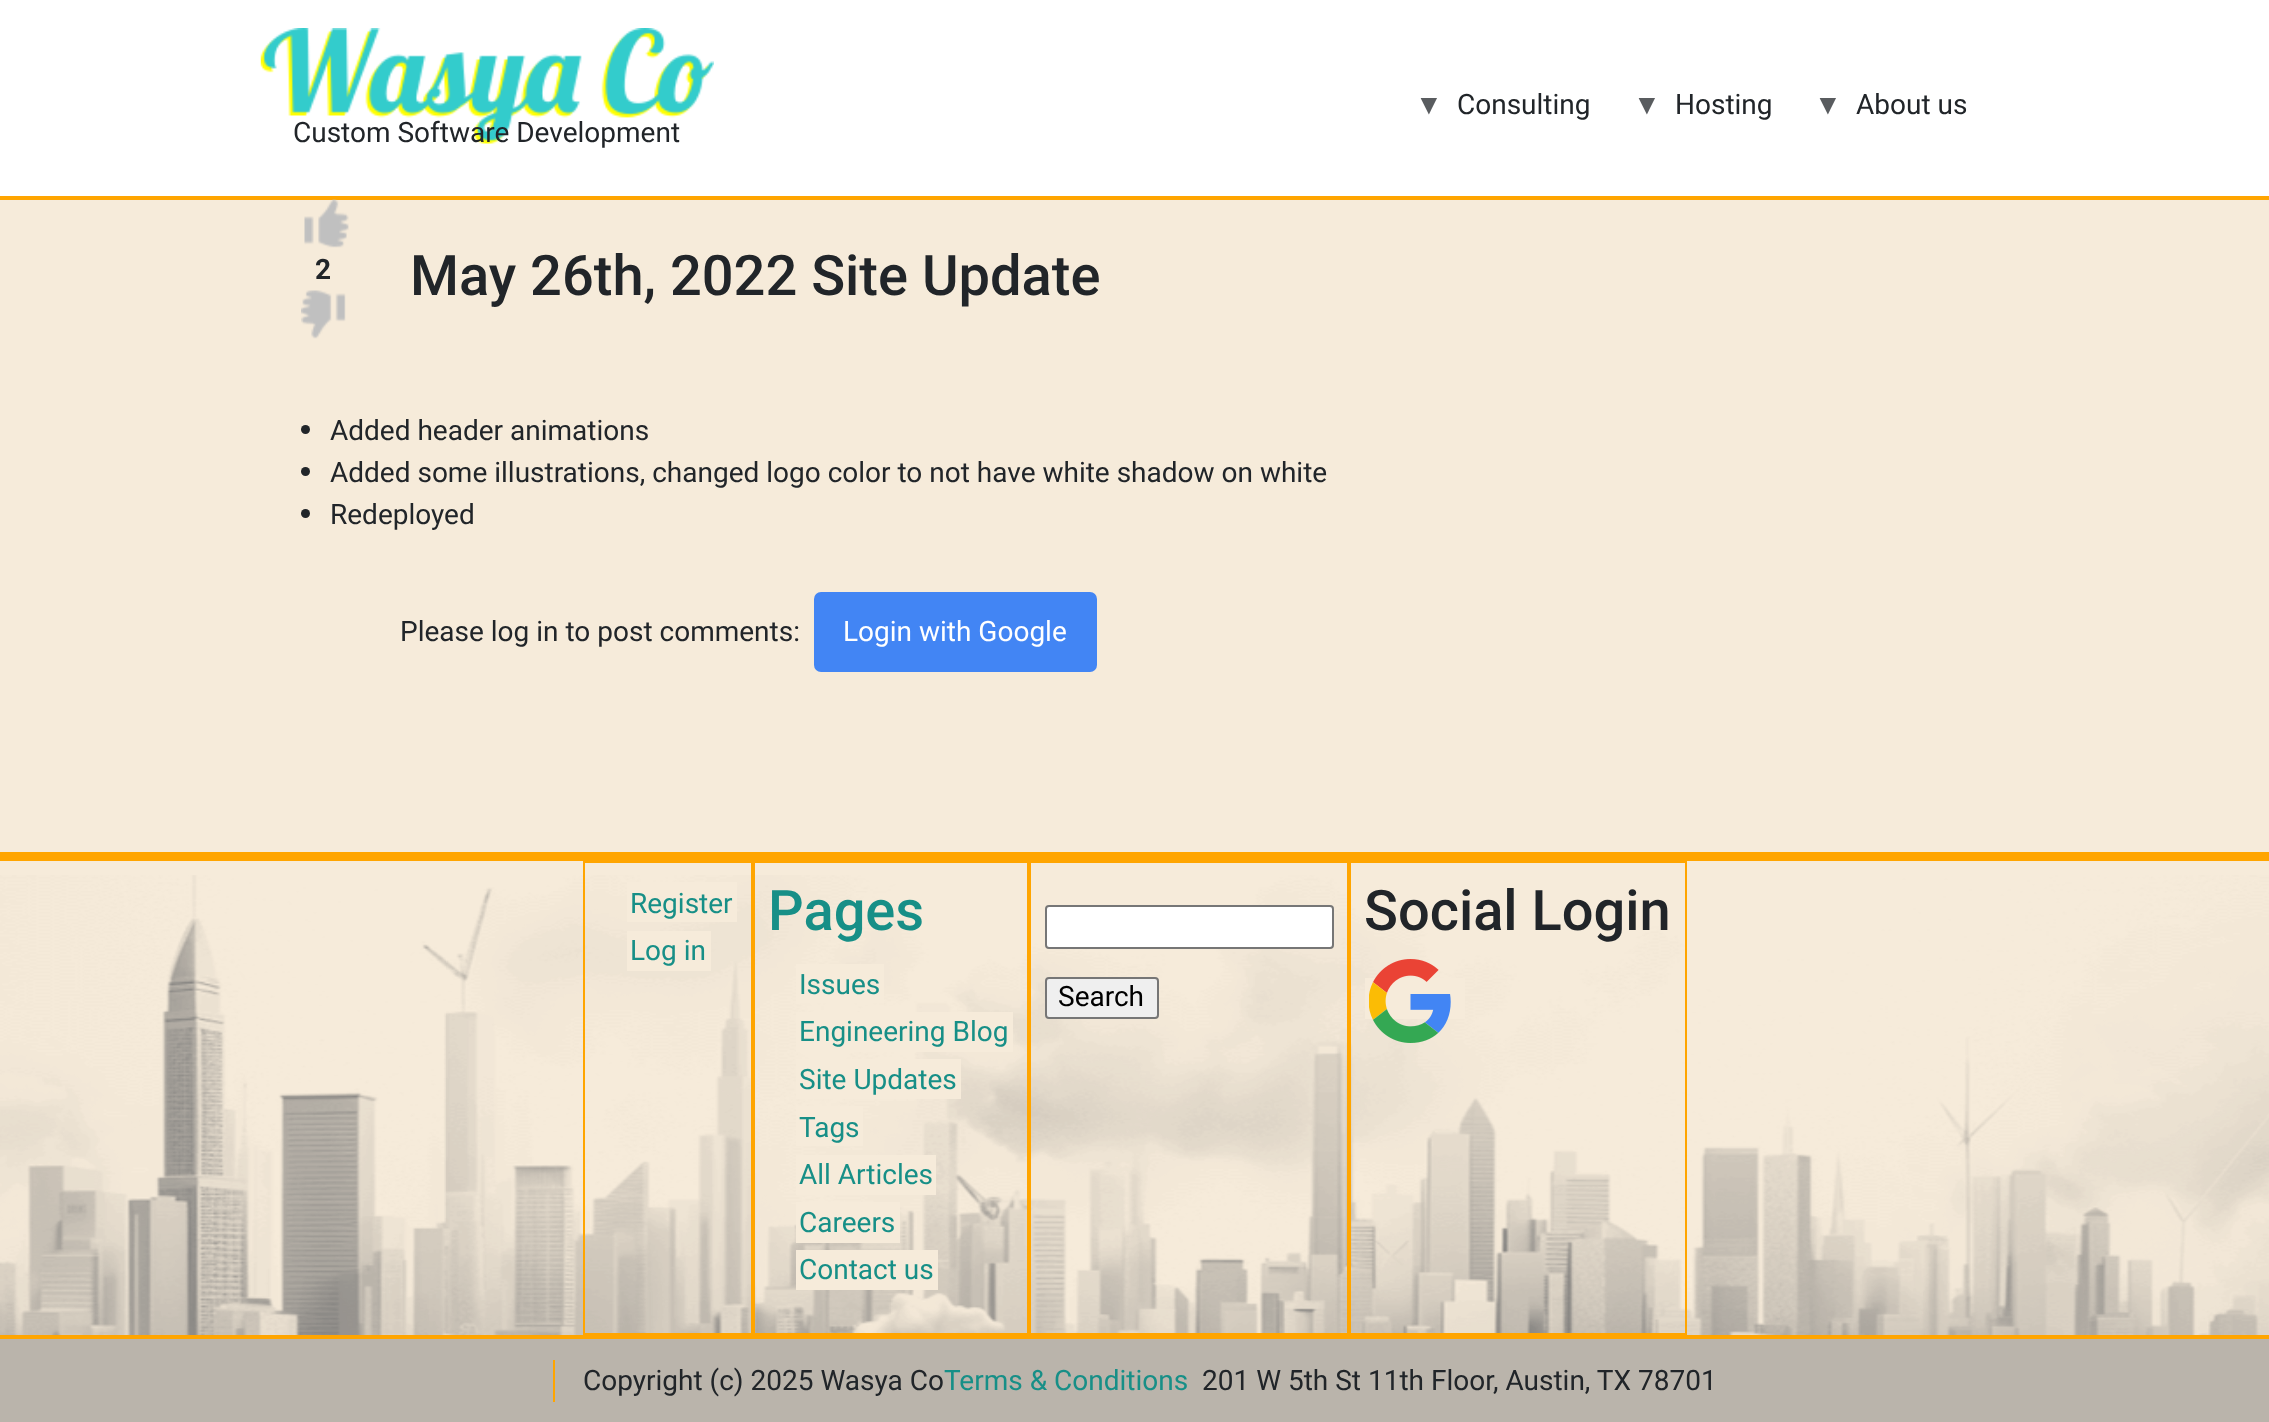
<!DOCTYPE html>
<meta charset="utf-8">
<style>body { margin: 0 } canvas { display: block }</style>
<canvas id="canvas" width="2269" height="1422"></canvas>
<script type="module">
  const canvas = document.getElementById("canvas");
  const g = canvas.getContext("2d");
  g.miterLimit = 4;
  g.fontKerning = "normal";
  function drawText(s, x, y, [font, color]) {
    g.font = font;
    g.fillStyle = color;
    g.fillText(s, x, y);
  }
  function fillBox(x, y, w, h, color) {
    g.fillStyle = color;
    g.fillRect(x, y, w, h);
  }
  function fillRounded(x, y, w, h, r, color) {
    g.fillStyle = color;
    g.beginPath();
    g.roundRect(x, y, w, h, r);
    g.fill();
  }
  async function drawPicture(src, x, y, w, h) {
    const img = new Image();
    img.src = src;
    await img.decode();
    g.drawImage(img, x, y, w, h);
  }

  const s1 = ["28px Liberation Sans", "#595C5F"];
  const s2 = ["28px Roboto", "#212529"];
  const s3 = ["bold 28px Roboto", "#212529"];
  const s4 = ["500 56px Roboto", "#212529"];
  const s5 = ["28px Roboto", "#FFFFFF"];
  const s6 = ["28px Roboto", "#178F87"];
  const s7 = ["500 56px Roboto", "#178F87"];
  const s8 = ["28px Roboto", "#000000"];

  fillBox(0, 0, 2269, 1422, "#FFFFFF");
  fillBox(0, 196, 2269, 4, "#FFA500");
  drawText("▼", 1415, 114, s1);
  drawText("Consulting", 1457, 114, s2);
  drawText("▼", 1633, 114, s1);
  drawText("Hosting", 1675, 114, s2);
  drawText("▼", 1814, 114, s1);
  drawText("About us", 1856, 114, s2);
  await drawPicture("pic1.png", 260, 28, 454, 116);
  drawText("Custom Software Development", 293, 142, s2);
  fillBox(0, 200, 2269, 652, "#F6EBDA");
  await drawPicture("pic2.png", 304, 199, 45, 49);
  drawText("2", 315, 279, s3);
  await drawPicture("pic3.png", 301, 290, 45, 49);
  drawText("May 26th, 2022 Site Update", 410, 295, s4);
  g.beginPath();
  g.arc(305.5, 429.5, 4.5, 0, Math.PI * 2);
  g.fill();
  drawText("Added header animations", 330, 440, s2);
  g.beginPath();
  g.arc(305.5, 471.5, 4.5, 0, Math.PI * 2);
  g.fill();
  drawText("Added some illustrations, changed logo color to not have white shadow on white", 330, 482, s2);
  g.beginPath();
  g.arc(305.5, 513.5, 4.5, 0, Math.PI * 2);
  g.fill();
  drawText("Redeployed", 330, 524, s2);
  drawText("Please log in to post comments:", 400, 641, s2);
  fillRounded(814, 592, 283, 80, 7, "#4285F4");
  drawText("Login with Google", 843, 641, s5);
  fillBox(0, 861, 2269, 474, "#F6EBDA");
  await drawPicture("pic4.png", 0, 875, 2269, 460);
  fillBox(0, 852, 2269, 9, "#FFA500");
  fillBox(0, 1335, 2269, 4, "#FFA500");
  g.strokeStyle = "#FFA500";
  g.lineWidth = 2;
  g.strokeRect(584, 862, 168, 472);
  fillBox(627, 882, 110, 40, "#F6EBDA");
  drawText("Register", 630, 913, s6);
  fillBox(627, 931, 84, 40, "#F6EBDA");
  drawText("Log in", 630, 960, s6);
  g.strokeRect(754, 862, 274, 472);
  drawText("Pages", 768, 930, s7);
  fillBox(796, 964, 88, 39, "#F6EBDA");
  drawText("Issues", 799, 994, s6);
  fillBox(796, 1012, 217, 40, "#F6EBDA");
  drawText("Engineering Blog", 799, 1041, s6);
  fillBox(796, 1059, 165, 40, "#F6EBDA");
  drawText("Site Updates", 799, 1089, s6);
  fillBox(796, 1106, 67, 40, "#F6EBDA");
  drawText("Tags", 799, 1137, s6);
  fillBox(796, 1155, 140, 40, "#F6EBDA");
  drawText("All Articles", 799, 1184, s6);
  fillBox(796, 1202, 104, 41, "#F6EBDA");
  drawText("Careers", 799, 1232, s6);
  fillBox(796, 1250, 142, 40, "#F6EBDA");
  drawText("Contact us", 799, 1279, s6);
  g.strokeRect(1350, 862, 336, 472);
  drawText("Social Login", 1364, 930, s4);
  fillBox(1365, 978, 100, 41, "#F6EBDA");
  await drawPicture("pic5.png", 1369, 959, 82, 84);
  g.strokeRect(1030, 862, 318, 472);
  g.fillStyle = "#FFFFFF";
  g.beginPath();
  g.roundRect(1046, 906, 287, 42, 3);
  g.fill();
  g.strokeStyle = "#767676";
  g.stroke();
  g.fillStyle = "#EFEFEF";
  g.beginPath();
  g.roundRect(1046, 978, 112, 40, 3);
  g.fill();
  g.stroke();
  drawText("Search", 1058, 1006, s8);
  fillBox(0, 1339, 2269, 83, "#BAB4AB");
  fillBox(553, 1360, 2, 42, "#FFA500");
  drawText("Copyright (c) 2025 Wasya Co", 583, 1390, s2);
  drawText("Terms & Conditions", 944, 1390, s6);
  drawText("201 W 5th St 11th Floor, Austin, TX 78701", 1202, 1390, s2);
</script>
